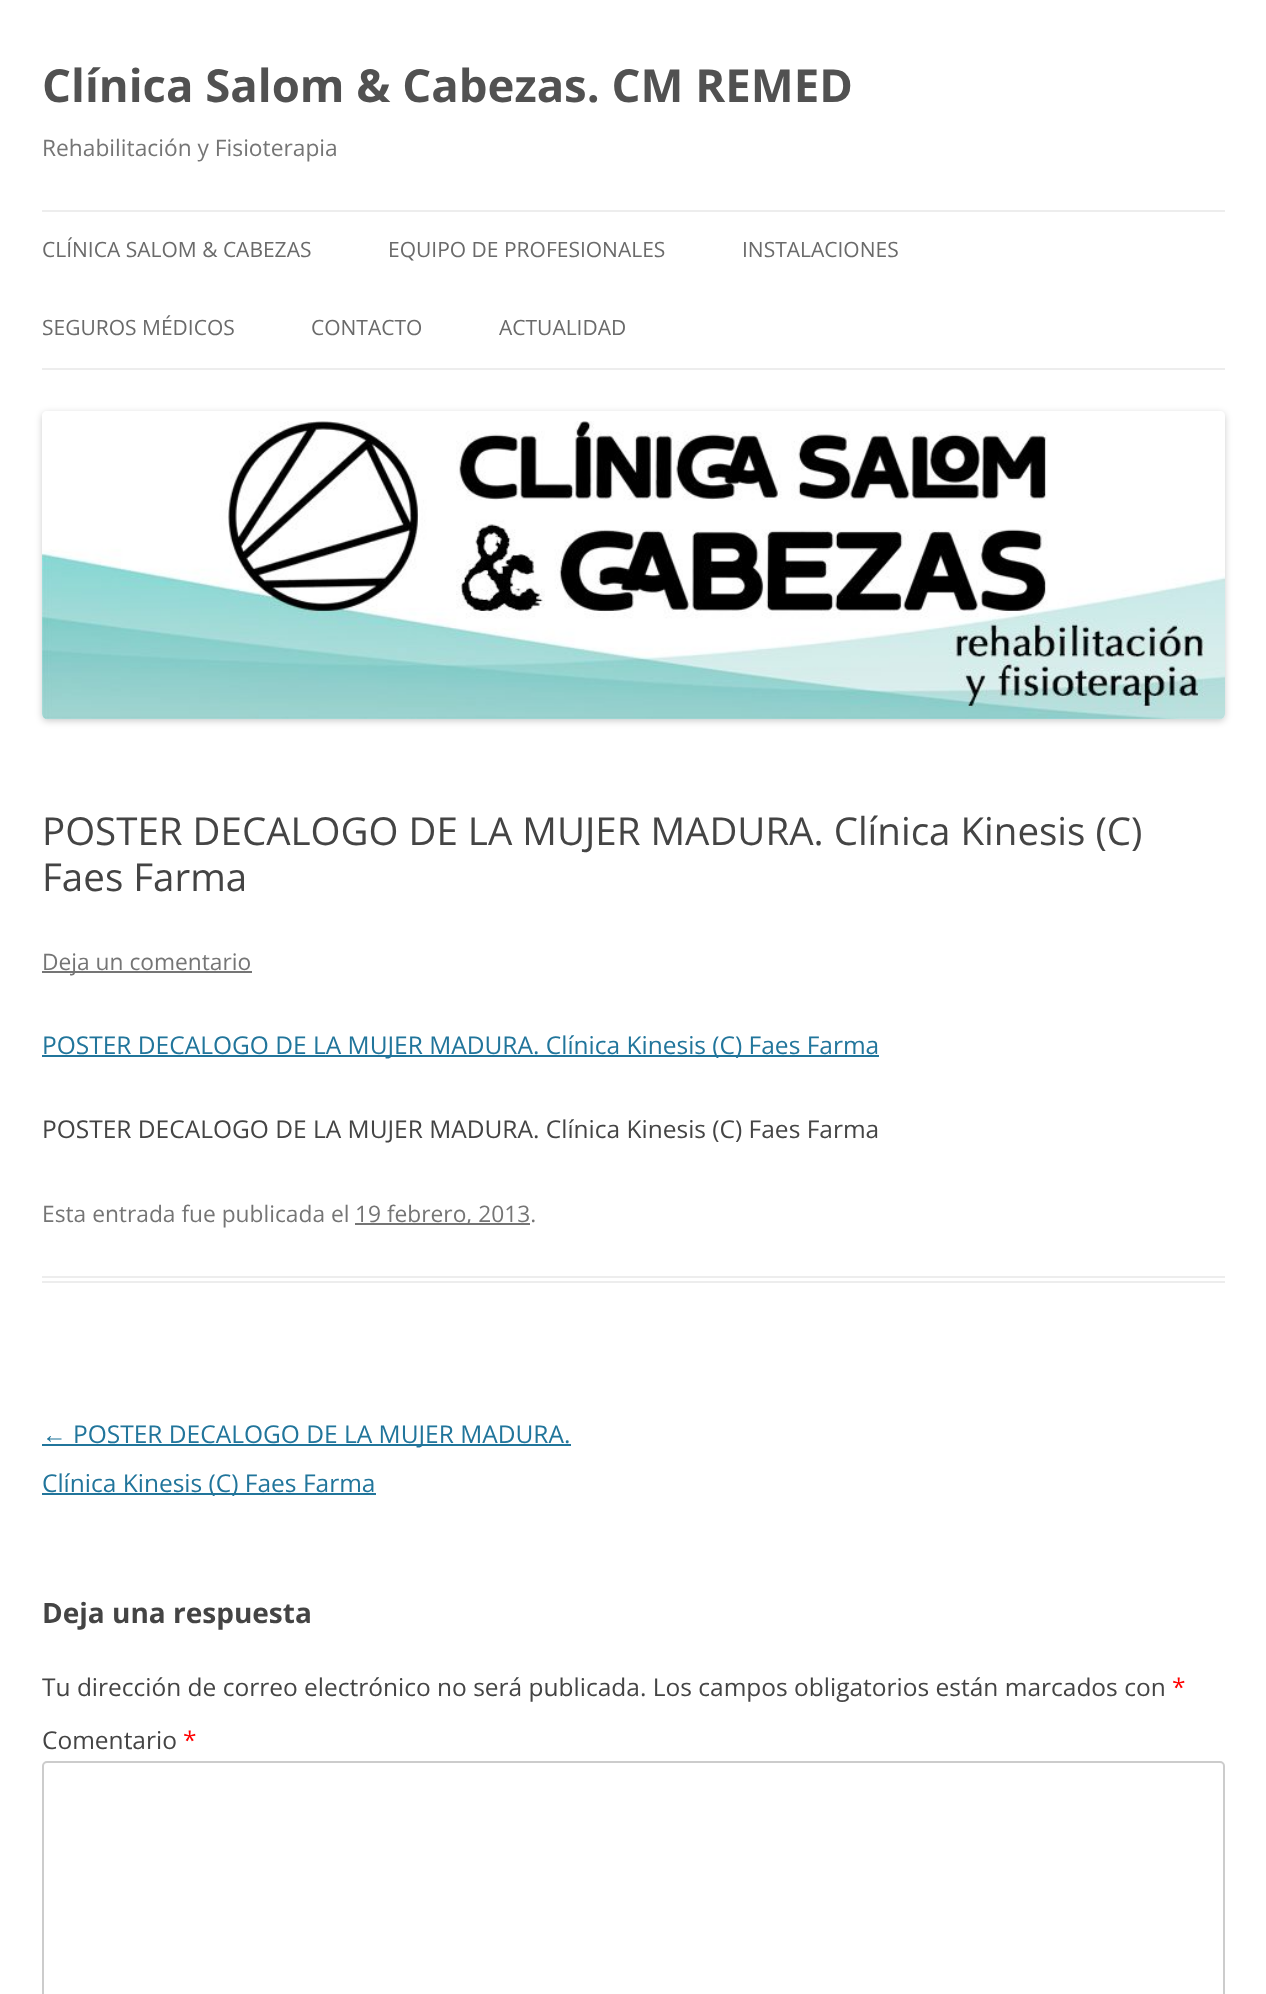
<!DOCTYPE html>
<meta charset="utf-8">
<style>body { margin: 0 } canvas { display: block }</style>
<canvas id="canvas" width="1266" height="1994"></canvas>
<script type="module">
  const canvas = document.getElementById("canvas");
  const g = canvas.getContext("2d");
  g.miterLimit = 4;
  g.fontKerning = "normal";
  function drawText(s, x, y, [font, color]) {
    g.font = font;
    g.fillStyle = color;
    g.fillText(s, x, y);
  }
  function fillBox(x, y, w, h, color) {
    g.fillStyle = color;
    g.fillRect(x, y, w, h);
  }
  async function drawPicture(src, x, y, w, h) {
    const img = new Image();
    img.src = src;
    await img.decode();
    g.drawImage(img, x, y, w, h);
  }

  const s1 = ["bold 45.5px Open Sans", "#515151"];
  const s2 = ["22.75px Open Sans", "#757575"];
  const s3 = ["21px Open Sans", "#6A6A6A"];
  const s4 = ["38.5px Open Sans", "#444444"];
  const s5 = ["24.5px Open Sans", "#21759B"];
  const s6 = ["24.5px Open Sans", "#444444"];
  const s7 = ["24.5px Liberation Sans", "#21759B"];
  const s8 = ["bold 28px Open Sans", "#444444"];
  const s9 = ["24.5px Open Sans", "#FF0000"];

  fillBox(0, 0, 1266, 1994, "#FFFFFF");
  drawText("Clínica Salom & Cabezas. CM REMED", 42, 102, s1);
  drawText("Rehabilitación y Fisioterapia", 42, 156, s2);
  fillBox(42, 210, 1183, 2, "#EDEDED");
  fillBox(42, 368, 1183, 2, "#EDEDED");
  drawText("CLÍNICA SALOM & CABEZAS", 42, 257, s3);
  drawText("EQUIPO DE PROFESIONALES", 388, 257, s3);
  drawText("INSTALACIONES", 742, 257, s3);
  drawText("SEGUROS MÉDICOS", 42, 335, s3);
  drawText("CONTACTO", 311, 335, s3);
  drawText("ACTUALIDAD", 499, 335, s3);
  g.save();
  g.beginPath();
  g.moveTo(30, 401);
  g.lineTo(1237, 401);
  g.lineTo(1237, 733);
  g.lineTo(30, 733);
  g.closePath();
  g.moveTo(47, 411);
  g.lineTo(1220, 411);
  g.bezierCurveTo(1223, 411, 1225, 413, 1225, 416);
  g.lineTo(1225, 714);
  g.bezierCurveTo(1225, 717, 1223, 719, 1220, 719);
  g.lineTo(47, 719);
  g.bezierCurveTo(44, 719, 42, 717, 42, 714);
  g.lineTo(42, 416);
  g.bezierCurveTo(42, 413, 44, 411, 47, 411);
  g.closePath();
  g.clip("evenodd");
  g.fillStyle = "rgba(0, 0, 0, 0.2)";
  g.filter = "blur(3.5px)";
  g.beginPath();
  g.roundRect(42, 413, 1183, 308, 5);
  g.fill();
  g.filter = "none";
  g.restore();
  await drawPicture("pic1.png", 42, 421, 1183, 299);
  fillBox(42, 1276, 1183, 2, "#EDEDED");
  fillBox(42, 1281, 1183, 2, "#EDEDED");
  drawText("POSTER DECALOGO DE LA MUJER MADURA. Clínica Kinesis (C)", 42, 845, s4);
  drawText("Faes Farma", 42, 891, s4);
  fillBox(42, 971, 210, 2, "#757575");
  drawText("Deja un comentario", 42, 970, s2);
  fillBox(42, 1055, 837, 2, "#21759B");
  drawText("POSTER DECALOGO DE LA MUJER MADURA. Clínica Kinesis (C) Faes Farma", 42, 1054, s5);
  drawText("POSTER DECALOGO DE LA MUJER MADURA. Clínica Kinesis (C) Faes Farma", 42, 1138, s6);
  drawText("Esta entrada fue publicada el", 42, 1222, s2);
  fillBox(355, 1223, 175, 2, "#757575");
  drawText("19 febrero, 2013.", 355, 1222, s2);
  drawText("←", 42, 1443, s7);
  fillBox(42, 1444, 529, 2, "#21759B");
  drawText("POSTER DECALOGO DE LA MUJER MADURA.", 73, 1443, s5);
  fillBox(42, 1493, 334, 2, "#21759B");
  drawText("Clínica Kinesis (C) Faes Farma", 42, 1492, s5);
  drawText("Deja una respuesta", 42, 1623, s8);
  drawText("Tu dirección de correo electrónico no será publicada. Los campos obligatorios están marcados con", 42, 1696, s6);
  drawText("*", 1172, 1696, s9);
  drawText("Comentario", 42, 1749, s6);
  drawText("*", 183, 1749, s9);
  g.beginPath();
  g.roundRect(43, 1762, 1181, 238, 4);
  g.strokeStyle = "#CCCCCC";
  g.lineWidth = 2;
  g.stroke();
</script>
